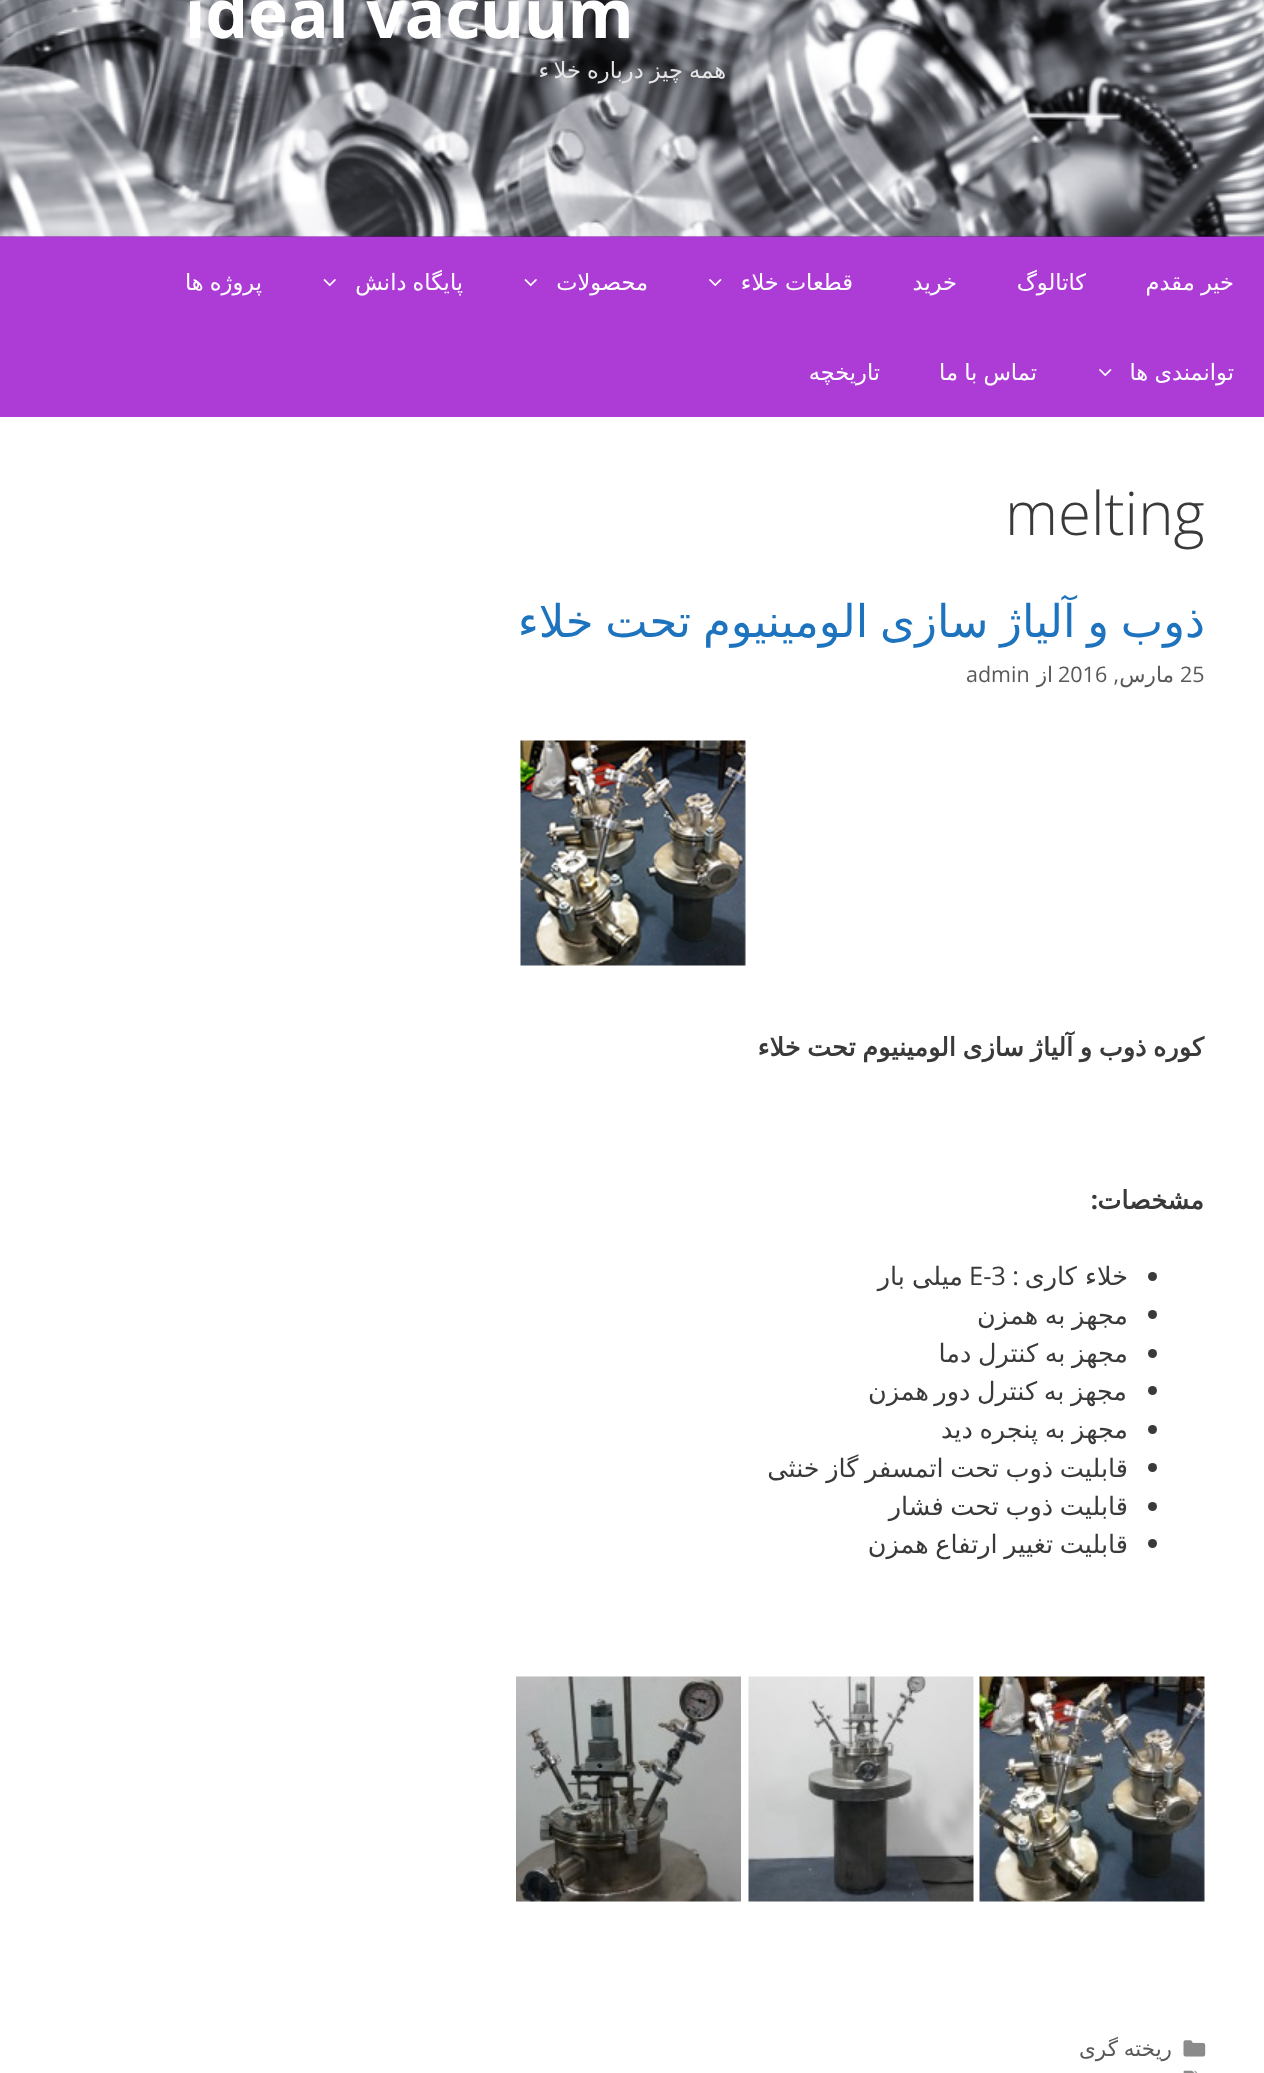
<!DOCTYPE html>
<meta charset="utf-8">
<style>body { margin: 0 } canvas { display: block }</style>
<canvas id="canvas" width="1264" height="2073"></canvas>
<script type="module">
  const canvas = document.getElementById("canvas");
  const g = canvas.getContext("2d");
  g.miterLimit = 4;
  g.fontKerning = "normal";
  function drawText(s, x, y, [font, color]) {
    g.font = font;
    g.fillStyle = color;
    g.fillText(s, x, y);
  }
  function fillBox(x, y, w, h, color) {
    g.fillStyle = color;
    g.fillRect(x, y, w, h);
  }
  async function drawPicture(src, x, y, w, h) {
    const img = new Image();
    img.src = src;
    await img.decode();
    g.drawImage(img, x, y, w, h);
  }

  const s1 = ["bold 67.5px Noto Sans", "#FFFFFF"];
  const s2 = ["22.5px DejaVu Sans", "#E5E5E5"];
  const s3 = ["22.5px DejaVu Sans", "#FFFFFF"];
  const s4 = ["300 60px Open Sans", "#3A3A3A"];
  const s5 = ["45px DejaVu Sans", "#1E73BE"];
  const s6 = ["21.5px Open Sans", "#595959"];
  const s7 = ["21.5px DejaVu Sans", "#595959"];
  const s8 = ["bold 25.5px DejaVu Sans", "#3A3A3A"];
  const s9 = ["bold 25.5px Open Sans", "#3A3A3A"];
  const s10 = ["25.5px DejaVu Sans", "#3A3A3A"];
  const s11 = ["25.5px Open Sans", "#3A3A3A"];

  fillBox(0, 0, 1264, 2073, "#AD3BD6");
  fillBox(0, 236, 1264, 1, "#7F00B2");
  await drawPicture("pic1.png", 0, 0, 1264, 237);
  drawText("ideal vacuum", 185, 38, s1);
  g.wordSpacing = "-1px";
  g.direction = "rtl";
  drawText("همه چیز درباره خلا", 726, 78, s2);
  g.wordSpacing = "0px";
  drawText("ء", 549, 78, s2);
  g.wordSpacing = "-1px";
  drawText("خیر مقدم", 1234, 290, s3);
  g.wordSpacing = "0px";
  drawText("کاتالوگ", 1086, 290, s3);
  drawText("خرید", 957, 290, s3);
  g.wordSpacing = "-1px";
  drawText("قطعات خلاء", 853, 290, s3);
  await drawPicture("pic2.png", 709, 279, 13, 8);
  g.wordSpacing = "0px";
  drawText("محصولات", 648, 290, s3);
  await drawPicture("pic3.png", 524, 279, 13, 8);
  g.wordSpacing = "-1px";
  drawText("پایگاه دانش", 463, 290, s3);
  await drawPicture("pic3.png", 323, 279, 13, 8);
  drawText("پروژه ها", 262, 290, s3);
  drawText("توانمندی ها", 1234, 380, s3);
  await drawPicture("pic2.png", 1099, 369, 13, 8);
  drawText("تماس با ما", 1037, 380, s3);
  g.wordSpacing = "0px";
  drawText("تاریخچه", 880, 380, s3);
  fillBox(0, 417, 1264, 1656, "#FFFFFF");
  g.direction = "ltr";
  drawText("melting", 1005, 535, s4);
  g.wordSpacing = "-2.5px";
  g.direction = "rtl";
  drawText("ذوب و آلیاژ سازی الومینیوم تحت خلاء", 1205, 637, s5);
  g.wordSpacing = "0px";
  g.direction = "ltr";
  drawText("25", 1180, 682, s6);
  g.direction = "rtl";
  drawText("مارس", 1174, 682, s7);
  drawText(",", 1119, 682, s6);
  g.direction = "ltr";
  drawText("2016", 1058, 682, s6);
  g.direction = "rtl";
  drawText("از", 1053, 682, s7);
  g.direction = "ltr";
  drawText("admin", 966, 682, s6);
  await drawPicture("pic4.png", 520, 740, 226, 226);
  g.wordSpacing = "-1.5px";
  g.direction = "rtl";
  drawText("کوره ذوب و آلیاژ سازی الومینیوم تحت خلاء", 1204, 1056, s8);
  g.wordSpacing = "0px";
  drawText("مشخصات", 1204, 1209, s8);
  drawText(":", 1098, 1209, s9);
  g.beginPath();
  g.arc(1152.5, 1276.5, 4.5, 0, Math.PI * 2);
  g.fill();
  drawText("خلاء کاری", 1128, 1285, s10);
  drawText(":", 1019, 1285, s11);
  g.direction = "ltr";
  drawText("E-3", 969, 1285, s11);
  g.wordSpacing = "-1px";
  g.direction = "rtl";
  drawText("میلی بار", 963, 1285, s10);
  g.beginPath();
  g.arc(1152.5, 1314.5, 4.5, 0, Math.PI * 2);
  g.fill();
  g.wordSpacing = "-1.5px";
  drawText("مجهز به همزن", 1128, 1324, s10);
  g.beginPath();
  g.arc(1152.5, 1353.5, 4.5, 0, Math.PI * 2);
  g.fill();
  drawText("مجهز به کنترل دما", 1128, 1362, s10);
  g.beginPath();
  g.arc(1152.5, 1390.5, 4.5, 0, Math.PI * 2);
  g.fill();
  drawText("مجهز به کنترل دور", 1127, 1400, s10);
  g.wordSpacing = "0px";
  drawText("همزن", 929, 1400, s10);
  g.beginPath();
  g.arc(1152.5, 1429.5, 4.5, 0, Math.PI * 2);
  g.fill();
  g.wordSpacing = "-1.5px";
  drawText("مجهز به پنجره دید", 1128, 1438, s10);
  g.beginPath();
  g.arc(1152.5, 1467.5, 4.5, 0, Math.PI * 2);
  g.fill();
  drawText("قابلیت ذوب تحت اتمسفر گاز خنثی", 1128, 1477, s10);
  g.beginPath();
  g.arc(1152.5, 1506.5, 4.5, 0, Math.PI * 2);
  g.fill();
  drawText("قابلیت ذوب تحت فشار", 1128, 1515, s10);
  g.beginPath();
  g.arc(1152.5, 1543.5, 4.5, 0, Math.PI * 2);
  g.fill();
  drawText("قابلیت تغییر ارتفاع همزن", 1128, 1553, s10);
  await drawPicture("pic5.png", 979, 1676, 226, 226);
  await drawPicture("pic6.png", 748, 1676, 226, 226);
  await drawPicture("pic7.png", 516, 1676, 225, 226);
  await drawPicture("pic8.png", 1183, 2040, 23, 17);
  g.wordSpacing = "-1px";
  drawText("ریخته گری", 1172, 2056, s7);
  await drawPicture("pic9.png", 1183, 2070, 15, 3);
</script>
